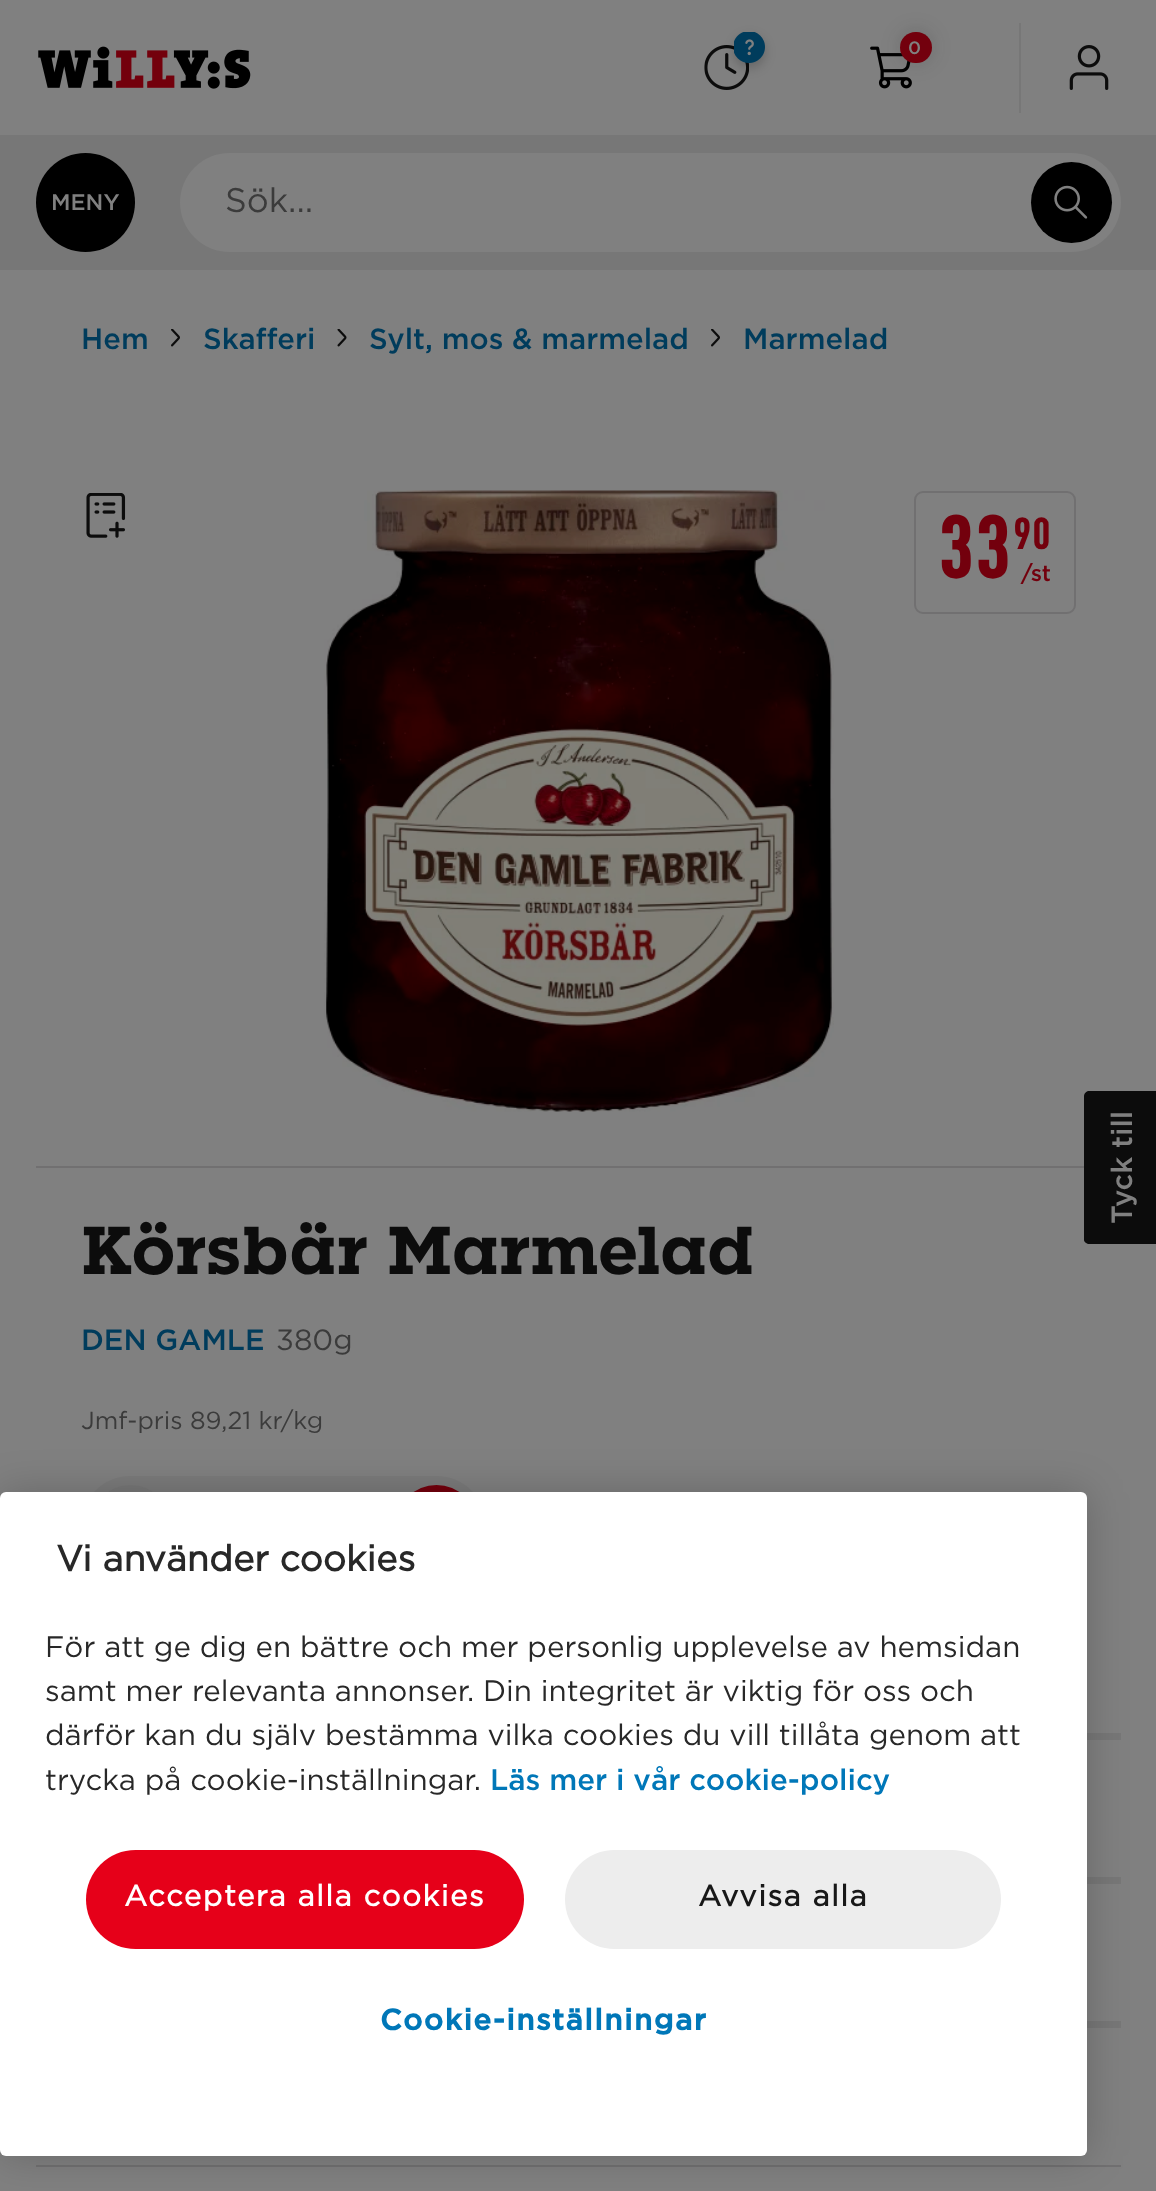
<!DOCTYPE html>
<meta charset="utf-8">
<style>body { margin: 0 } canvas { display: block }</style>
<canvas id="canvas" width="1156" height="2191"></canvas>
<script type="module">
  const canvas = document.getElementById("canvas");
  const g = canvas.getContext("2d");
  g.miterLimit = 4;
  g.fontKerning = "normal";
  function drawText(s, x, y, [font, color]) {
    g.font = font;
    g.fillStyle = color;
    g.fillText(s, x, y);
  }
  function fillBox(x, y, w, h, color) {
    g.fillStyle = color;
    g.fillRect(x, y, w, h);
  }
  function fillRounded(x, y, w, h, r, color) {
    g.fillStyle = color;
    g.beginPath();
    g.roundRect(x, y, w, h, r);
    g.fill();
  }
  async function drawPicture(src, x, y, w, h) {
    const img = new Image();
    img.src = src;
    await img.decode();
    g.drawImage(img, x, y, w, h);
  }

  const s1 = ["500 18px Gotham", "#808080"];
  const s2 = ["500 22.5px Gotham", "#808080"];
  const s3 = ["34px Gotham", "#3B3B3B"];
  const s4 = ["500 29.25px Gotham", "#003C5C"];
  const s5 = ["90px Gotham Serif", "#73000D"];
  const s6 = ["45px Gotham Serif", "#73000D"];
  const s7 = ["500 22.5px Gotham", "#73000D"];
  const s8 = ["bold 67.5px Gotham Serif", "#0C0C0C"];
  const s9 = ["29.25px Gotham", "#3B3B3B"];
  const s10 = ["24.75px Gotham", "#3B3B3B"];
  const s11 = ["bold 36px Gotham", "#282828"];
  const s12 = ["29.5px Gotham", "#282828"];
  const s13 = ["500 29.5px Gotham", "#0077B8"];
  const s14 = ["bold 29.5px Gotham", "#FFFFFF"];
  const s15 = ["bold 29.5px Gotham", "#181818"];
  const s16 = ["bold 29.5px 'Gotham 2'", "#0077B8"];

  fillBox(0, 0, 1156, 2191, "#808080");
  await drawPicture("pic1.png", 38, 46, 213, 43);
  await drawPicture("pic3.png", 704, 45, 45, 45);
  g.fillStyle = "rgba(0, 0, 0, 0.2)";
  g.filter = "blur(5.5px)";
  g.beginPath();
  g.roundRect(734, 36, 31, 32, 15.5);
  g.fill();
  g.filter = "none";
  await drawPicture("pic2.png", 734, 32, 31, 31);
  await drawPicture("pic4.png", 870, 46, 42, 43);
  g.fillStyle = "rgba(25, 25, 25, 0.15)";
  g.filter = "blur(9px)";
  g.beginPath();
  g.roundRect(898, 29, 36, 36, 18);
  g.fill();
  g.filter = "none";
  fillRounded(900, 32, 32, 31, 15.5, "#73000D");
  drawText("0", 908, 54, s1);
  fillBox(1019, 23, 2, 90, "#777777");
  await drawPicture("pic5.png", 1069, 45, 40, 45);
  fillBox(0, 135, 1156, 135, "#777777");
  g.fillStyle = "#000000";
  g.beginPath();
  g.arc(85.5, 202.5, 49.5, 0, Math.PI * 2);
  g.fill();
  drawText("MENY", 51, 210, s2);
  fillRounded(180, 153, 941, 99, 49.5, "#808080");
  drawText("Sök...", 225, 212, s3);
  g.fillStyle = "#000000";
  g.beginPath();
  g.arc(1071.5, 202.5, 40.5, 0, Math.PI * 2);
  g.fill();
  await drawPicture("pic6.png", 1054, 185, 34, 34);
  drawText("Hem", 81, 349, s4);
  await drawPicture("pic7.png", 171, 329, 9, 18);
  drawText("Skafferi", 203, 349, s4);
  await drawPicture("pic8.png", 337, 329, 10, 18);
  drawText("Sylt, mos & marmelad", 369, 349, s4);
  await drawPicture("pic7.png", 711, 329, 9, 18);
  drawText("Marmelad", 743, 349, s4);
  fillBox(36, 1166, 1048, 2, "#717071");
  await drawPicture("pic9.png", 324, 490, 510, 622);
  await drawPicture("pic10.png", 86, 493, 40, 45);
  g.beginPath();
  g.roundRect(915, 492, 160, 121, 8);
  g.strokeStyle = "#717071";
  g.lineWidth = 2;
  g.stroke();
  drawText("33", 939, 578, s5);
  drawText("90", 1013, 549, s6);
  drawText("/st", 1021, 581, s7);
  fillBox(36, 2165, 1085, 2, "#717071");
  drawText("Körsbär Marmelad", 81, 1274, s8);
  drawText("DEN GAMLE", 81, 1350, s4);
  drawText("380g", 276, 1350, s9);
  drawText("Jmf-pris 89,21 kr/kg", 81, 1429, s10);
  fillRounded(81, 1476, 405, 99, 49.5, "#7B7B7B");
  g.fillStyle = "#777777";
  g.beginPath();
  g.arc(130.5, 1525.5, 40.5, 0, Math.PI * 2);
  g.fill();
  g.fillStyle = "#73000D";
  g.beginPath();
  g.arc(436.5, 1525.5, 40.5, 0, Math.PI * 2);
  g.fill();
  fillBox(1087, 1733, 34, 7, "#777777");
  fillBox(1087, 1877, 34, 7, "#777777");
  fillBox(1087, 2021, 34, 7, "#777777");
  g.fillStyle = "#0C0C0C";
  g.beginPath();
  g.moveTo(1084, 1240);
  g.lineTo(1084, 1096);
  g.bezierCurveTo(1084, 1093, 1087, 1091, 1089, 1091);
  g.lineTo(1156, 1091);
  g.lineTo(1156, 1244);
  g.lineTo(1089, 1244);
  g.bezierCurveTo(1087, 1244, 1084, 1242, 1084, 1240);
  g.closePath();
  g.fill();
  g.font = "500 29.25px Gotham";
  g.fillStyle = "#808080";
  g.save();
  g.translate(1132, 1224);
  g.rotate(-90 * Math.PI / 180);
  g.fillText("Tyck till", 0, 0);
  g.restore();
  g.fillStyle = "rgba(0, 0, 0, 0.2)";
  g.filter = "blur(20px)";
  g.beginPath();
  g.roundRect(0, 1492, 1087, 664, 6);
  g.fill();
  g.filter = "none";
  fillRounded(0, 1492, 1087, 664, 6, "#FFFFFF");
  drawText("Vi använder cookies", 56, 1571, s11);
  drawText("För att ge dig en bättre och mer personlig upplevelse av hemsidan", 45, 1657, s12);
  drawText("samt mer relevanta annonser. Din integritet är viktig för oss och", 45, 1701, s12);
  drawText("därför kan du själv bestämma vilka cookies du vill tillåta genom att", 45, 1745, s12);
  drawText("trycka på cookie-inställningar.", 45, 1790, s12);
  drawText("Läs mer i vår cookie-policy", 490, 1790, s13);
  fillRounded(86, 1850, 438, 99, 49.5, "#E60019");
  g.letterSpacing = "1.5px";
  drawText("Acceptera alla cookies", 124, 1906, s14);
  fillRounded(565, 1850, 436, 99, 49.5, "#EDEDED");
  drawText("Avvisa alla", 698, 1906, s15);
  drawText("Cookie-inställningar", 380, 2030, s16);
</script>
